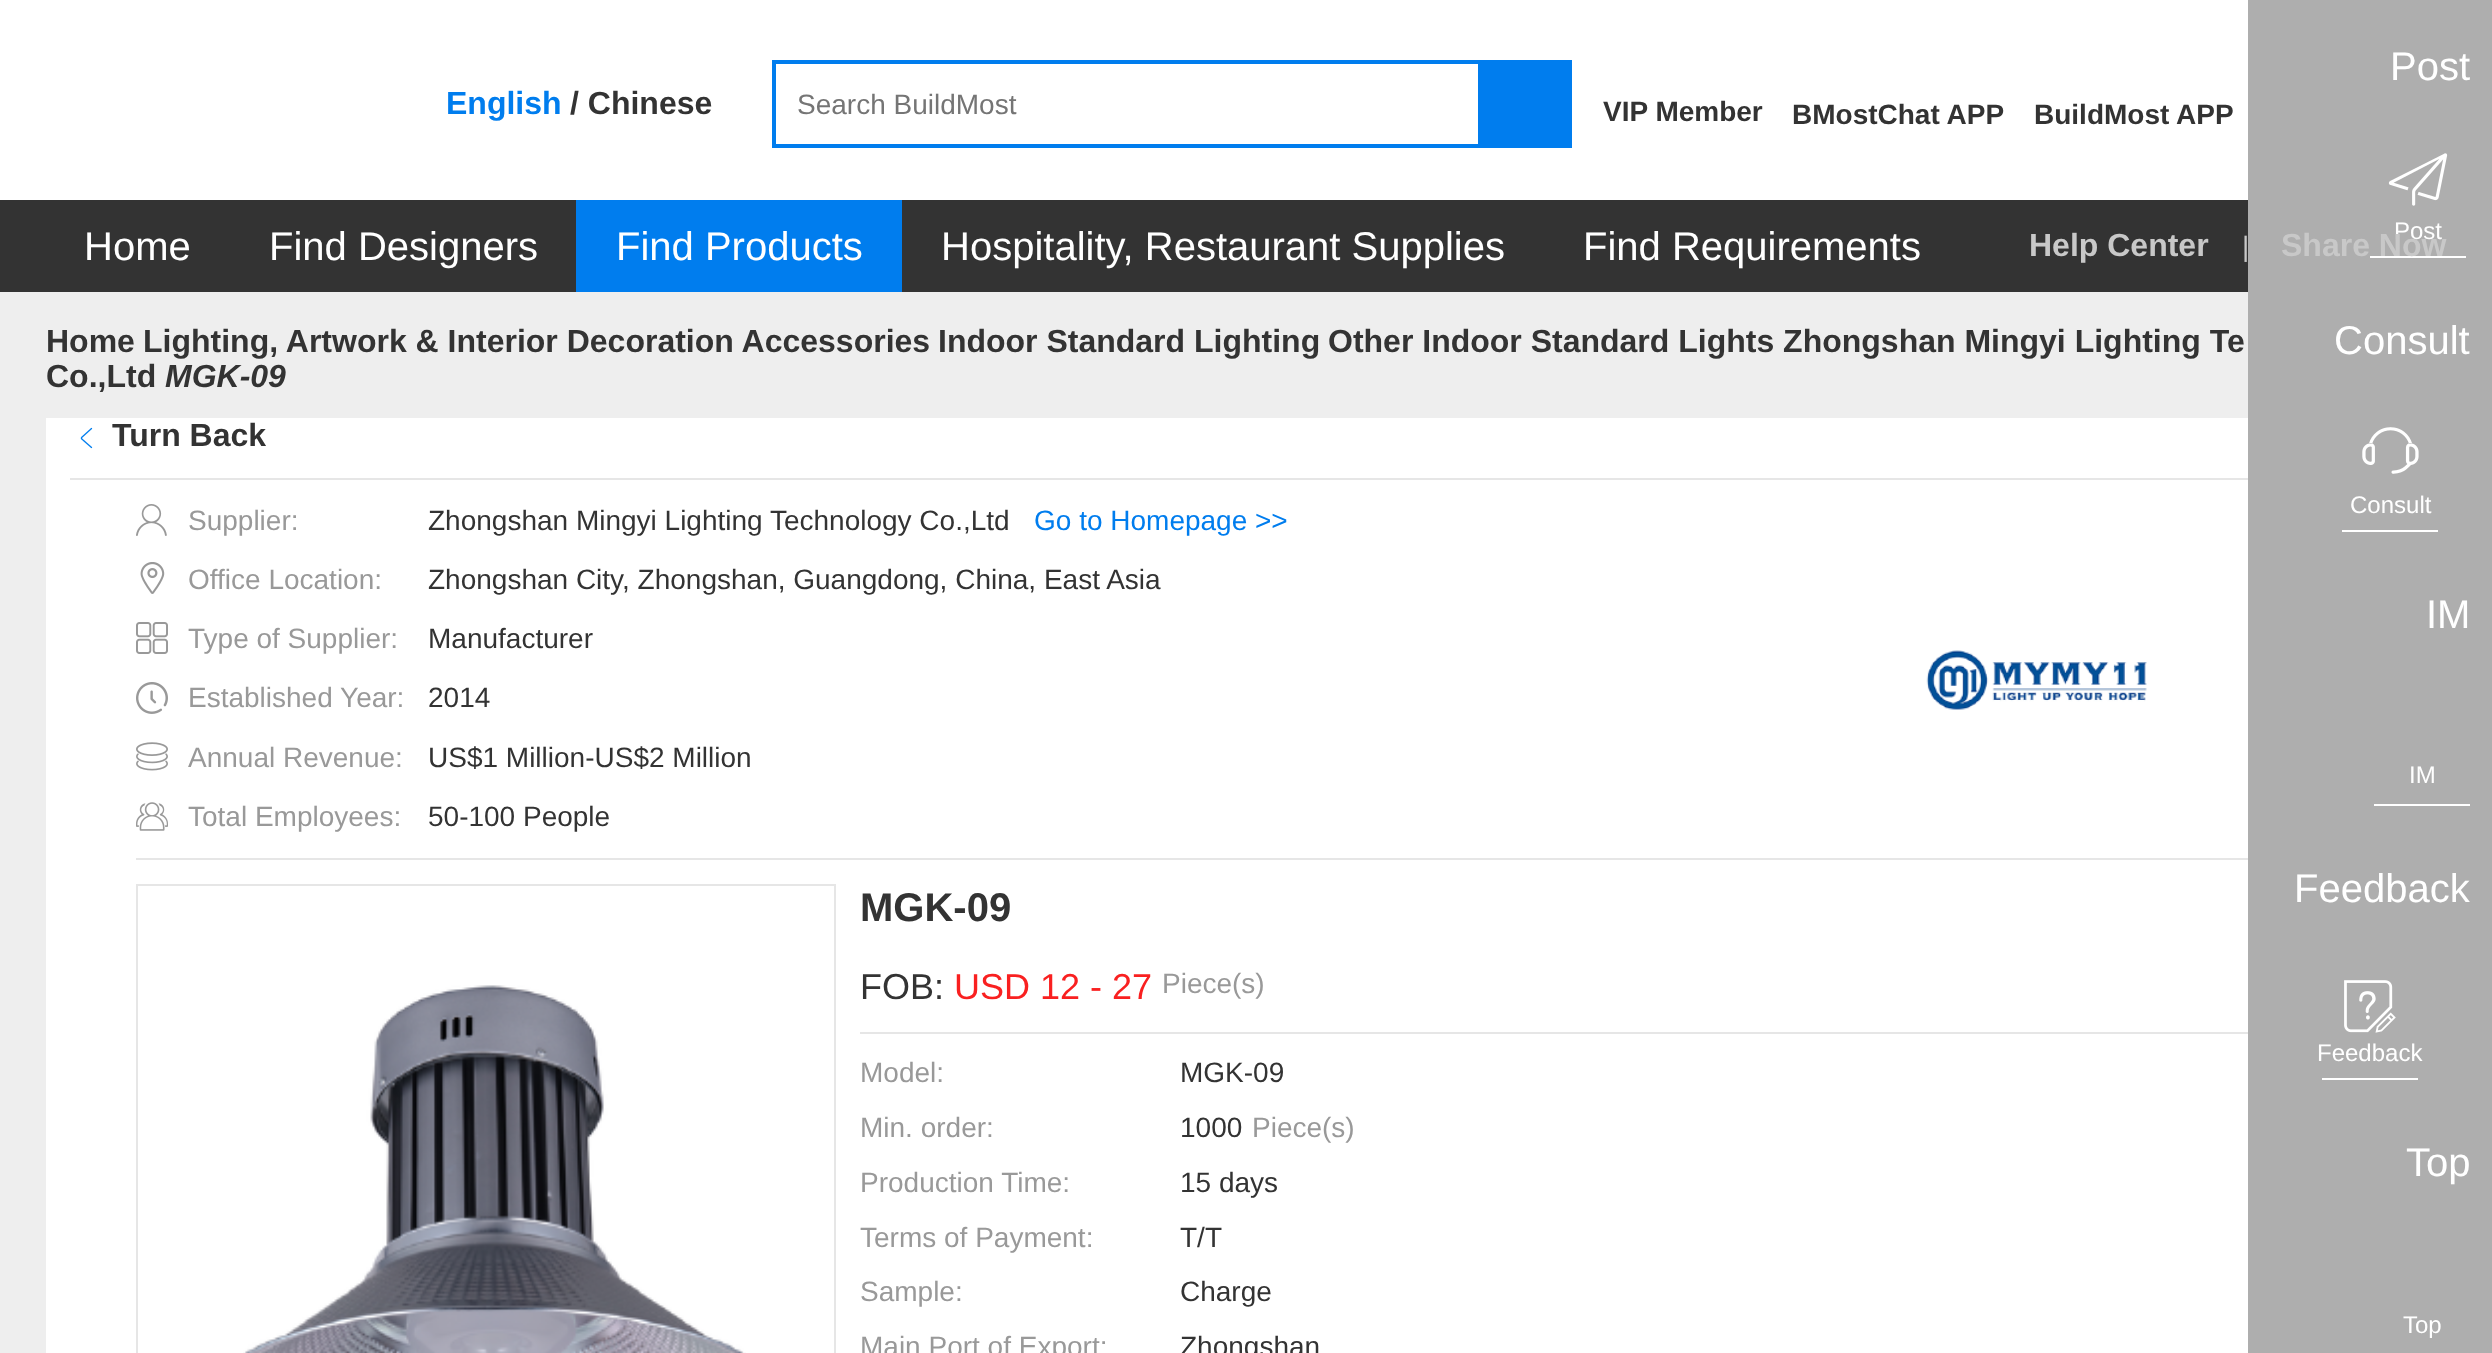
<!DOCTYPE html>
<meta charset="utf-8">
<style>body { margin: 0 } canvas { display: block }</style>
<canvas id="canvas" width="2492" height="1353"></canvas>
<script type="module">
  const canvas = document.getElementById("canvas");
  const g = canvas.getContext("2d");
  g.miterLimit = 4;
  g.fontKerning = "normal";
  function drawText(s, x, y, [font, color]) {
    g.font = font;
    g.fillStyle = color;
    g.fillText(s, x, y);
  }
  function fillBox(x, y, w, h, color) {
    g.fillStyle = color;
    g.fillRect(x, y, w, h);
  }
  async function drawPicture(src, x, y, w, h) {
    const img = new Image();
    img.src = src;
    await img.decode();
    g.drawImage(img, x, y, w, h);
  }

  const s1 = ["bold 32px Liberation Sans", "#007DEE"];
  const s2 = ["bold 32px Liberation Sans", "#333333"];
  const s3 = ["28px Liberation Sans", "#757575"];
  const s4 = ["bold 28px Liberation Sans", "#333333"];
  const s5 = ["40px Liberation Sans", "#FFFFFF"];
  const s6 = ["24px Liberation Sans", "#FFFFFF"];
  const s7 = ["bold 32px Liberation Sans", "#C8C8C8"];
  const s8 = ["28px Liberation Sans", "#C8C8C8"];
  const s9 = ["italic bold 32px Liberation Sans", "#333333"];
  const s10 = ["28px Liberation Sans", "#999999"];
  const s11 = ["28px Liberation Sans", "#333333"];
  const s12 = ["28px Liberation Sans", "#007DEE"];
  const s13 = ["bold 40px Liberation Sans", "#333333"];
  const s14 = ["36px Liberation Sans", "#333333"];
  const s15 = ["36px Liberation Sans", "#F92020"];

  fillBox(0, 0, 2492, 1353, "#EEEEEE");
  fillBox(0, 0, 2248, 200, "#FFFFFF");
  drawText("English", 446, 114, s1);
  drawText("/ Chinese", 570, 114, s2);
  g.strokeStyle = "#007DEE";
  g.lineWidth = 4;
  g.strokeRect(774, 62, 796, 84);
  drawText("Search BuildMost", 797, 114, s3);
  fillBox(1478, 64, 90, 80, "#007DEE");
  drawText("VIP Member", 1603, 121, s4);
  drawText("BMostChat APP", 1792, 124, s4);
  drawText("BuildMost APP", 2034, 124, s4);
  fillBox(2248, 0, 244, 1353, "#AEAEAE");
  drawText("Post", 2390, 80, s5);
  fillBox(2370, 256, 96, 2, "#FFFFFF");
  await drawPicture("pic1.png", 2388, 153, 60, 53);
  drawText("Post", 2394, 239, s6);
  drawText("Consult", 2334, 354, s5);
  fillBox(2342, 530, 96, 2, "#FFFFFF");
  await drawPicture("pic2.png", 2362, 427, 57, 47);
  drawText("Consult", 2350, 513, s6);
  drawText("IM", 2426, 628, s5);
  fillBox(2374, 804, 96, 2, "#FFFFFF");
  drawText("IM", 2409, 783, s6);
  drawText("Feedback", 2294, 902, s5);
  fillBox(2322, 1078, 96, 2, "#FFFFFF");
  await drawPicture("pic3.png", 2344, 980, 52, 53);
  drawText("Feedback", 2317, 1061, s6);
  drawText("Top", 2406, 1176, s5);
  drawText("Top", 2403, 1333, s6);
  fillBox(0, 200, 2248, 92, "#333333");
  drawText("Home", 84, 260, s5);
  drawText("Find Designers", 269, 260, s5);
  fillBox(576, 200, 326, 92, "#007DEE");
  drawText("Find Products", 616, 260, s5);
  drawText("Hospitality, Restaurant Supplies", 941, 260, s5);
  drawText("Find Requirements", 1583, 260, s5);
  drawText("Help Center", 2029, 256, s7);
  drawText("|", 2242, 256, s8);
  drawText("Share Now", 2281, 256, s7);
  drawText("Home", 46, 352, s2);
  drawText("Lighting, Artwork & Interior Decoration Accessories", 143, 352, s2);
  drawText("Indoor Standard Lighting", 938, 352, s2);
  drawText("Other Indoor Standard Lights Zhongshan Mingyi Lighting Te", 1328, 352, s2);
  drawText("Co.,Ltd", 46, 387, s2);
  drawText("MGK-09", 165, 387, s9);
  fillBox(46, 418, 2202, 935, "#FFFFFF");
  fillBox(70, 478, 2178, 2, "#E6E6E6");
  await drawPicture("pic4.png", 80, 427, 13, 22);
  drawText("Turn Back", 112, 446, s2);
  fillBox(136, 858, 2112, 2, "#E6E6E6");
  await drawPicture("pic5.png", 136, 504, 31, 32);
  drawText("Supplier:", 188, 530, s10);
  drawText("Zhongshan Mingyi Lighting Technology Co.,Ltd", 428, 530, s11);
  drawText("Go to Homepage >>", 1034, 530, s12);
  await drawPicture("pic6.png", 140, 562, 25, 32);
  drawText("Office Location:", 188, 589, s10);
  drawText("Zhongshan City, Zhongshan, Guangdong, China, East Asia", 428, 589, s11);
  await drawPicture("pic7.png", 136, 622, 32, 32);
  drawText("Type of Supplier:", 188, 648, s10);
  drawText("Manufacturer", 428, 648, s11);
  await drawPicture("pic8.png", 136, 682, 32, 32);
  drawText("Established Year:", 188, 707, s10);
  drawText("2014", 428, 707, s11);
  await drawPicture("pic9.png", 136, 742, 32, 29);
  drawText("Annual Revenue:", 188, 767, s10);
  drawText("US$1 Million-US$2 Million", 428, 767, s11);
  await drawPicture("pic10.png", 136, 802, 32, 29);
  drawText("Total Employees:", 188, 826, s10);
  drawText("50-100 People", 428, 826, s11);
  await drawPicture("pic11.png", 1926, 650, 221, 60);
  g.strokeStyle = "#E6E6E6";
  g.lineWidth = 2;
  g.strokeRect(137, 885, 698, 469);
  await drawPicture("pic12.png", 243, 985, 503, 368);
  drawText("MGK-09", 860, 921, s13);
  drawText("FOB:", 860, 999, s14);
  drawText("USD 12 - 27", 954, 999, s15);
  drawText("Piece(s)", 1162, 993, s10);
  fillBox(860, 1032, 1388, 2, "#E6E6E6");
  drawText("Model:", 860, 1082, s10);
  drawText("MGK-09", 1180, 1082, s11);
  drawText("Min. order:", 860, 1137, s10);
  drawText("1000", 1180, 1137, s11);
  drawText("Piece(s)", 1252, 1137, s10);
  drawText("Production Time:", 860, 1192, s10);
  drawText("15 days", 1180, 1192, s11);
  drawText("Terms of Payment:", 860, 1247, s10);
  drawText("T/T", 1180, 1247, s11);
  drawText("Sample:", 860, 1301, s10);
  drawText("Charge", 1180, 1301, s11);
  drawText("Main Port of Export:", 860, 1356, s10);
  drawText("Zhongshan", 1180, 1356, s11);
</script>
